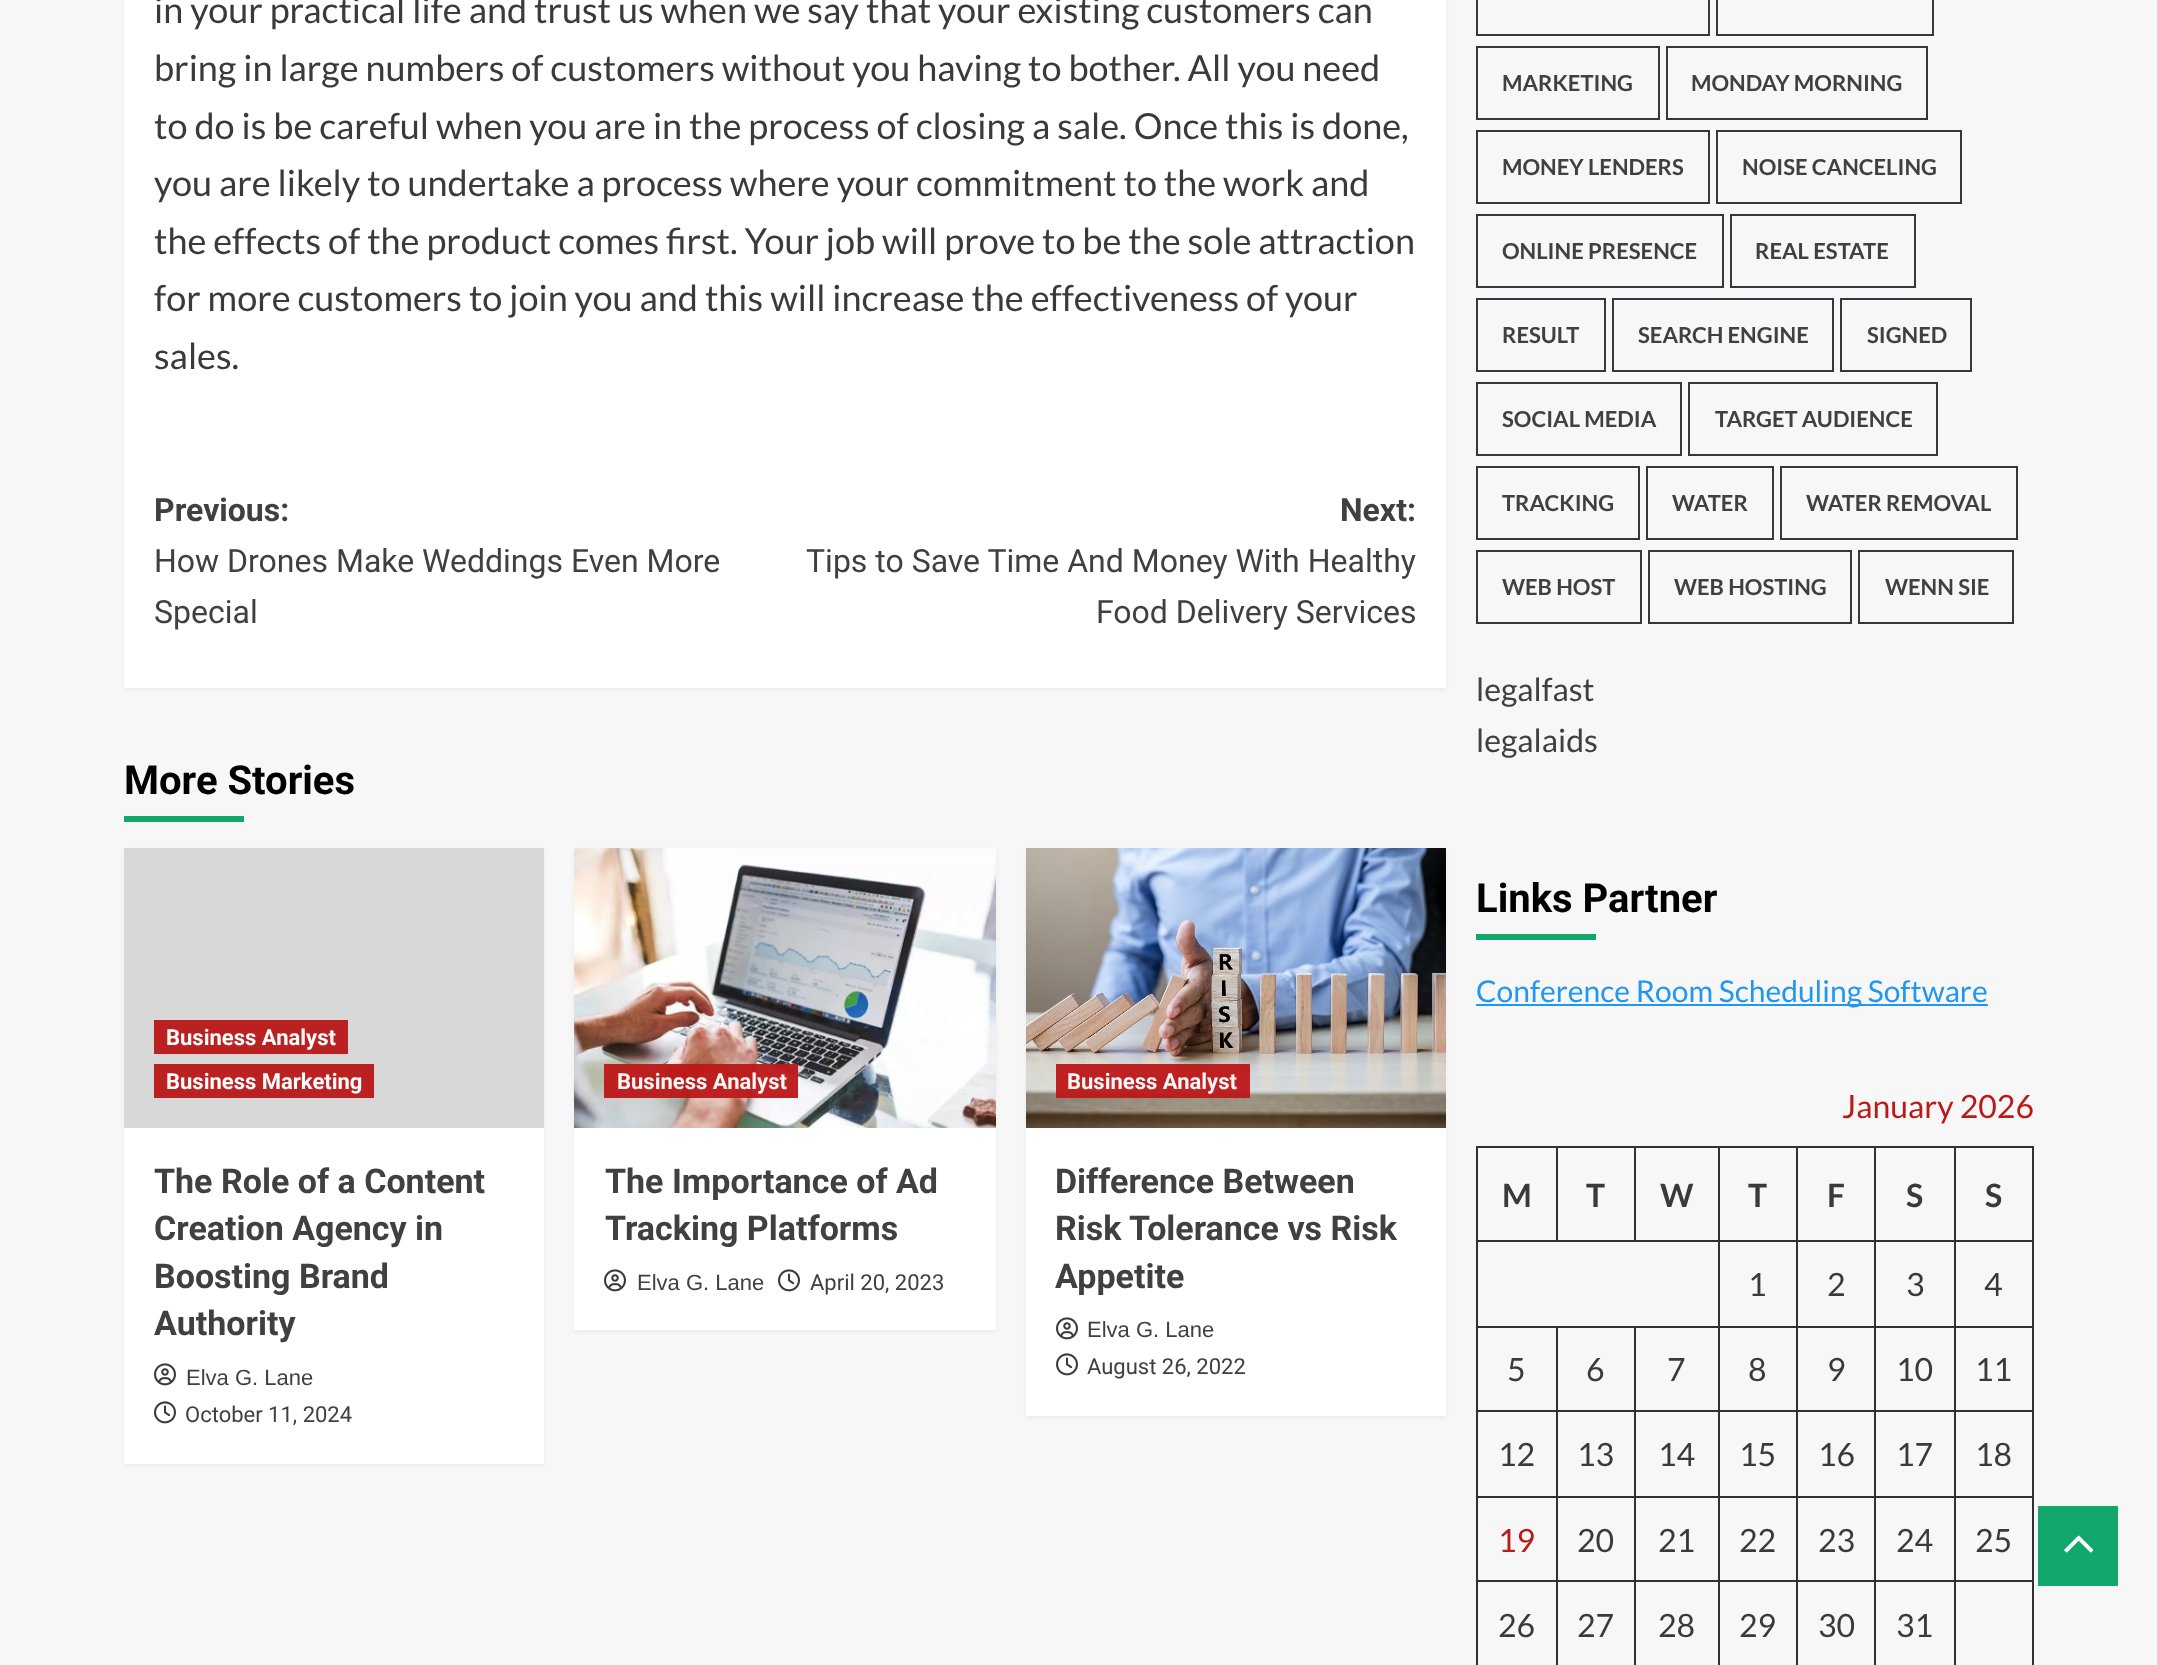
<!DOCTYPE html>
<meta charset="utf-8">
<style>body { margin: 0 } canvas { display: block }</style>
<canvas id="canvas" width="2157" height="1665"></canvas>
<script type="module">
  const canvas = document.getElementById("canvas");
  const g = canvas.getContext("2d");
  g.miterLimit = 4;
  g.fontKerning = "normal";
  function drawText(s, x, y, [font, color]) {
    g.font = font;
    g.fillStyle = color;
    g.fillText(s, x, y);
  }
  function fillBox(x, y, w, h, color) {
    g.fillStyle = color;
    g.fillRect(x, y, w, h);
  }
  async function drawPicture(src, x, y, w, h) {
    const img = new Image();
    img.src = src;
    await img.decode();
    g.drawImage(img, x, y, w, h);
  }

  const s1 = ["36px Lato", "#3A3A3A"];
  const s2 = ["bold 32px Roboto", "#404040"];
  const s3 = ["32px Roboto", "#404040"];
  const s4 = ["bold 40px Roboto", "#000000"];
  const s5 = ["bold 22px Roboto", "#FDFDFD"];
  const s6 = ["bold 34px Roboto", "#404040"];
  const s7 = ["22px Liberation Sans", "#404040"];
  const s8 = ["22px Roboto", "#404040"];
  const s9 = ["bold 22px Roboto", "#FCF6F6"];
  const s10 = ["bold 22px Lato", "#404040"];
  const s11 = ["32px Lato", "#404040"];
  const s12 = ["30px Lato", "#2196F3"];
  const s13 = ["32px Lato", "#BB1919"];
  const s14 = ["bold 32px Lato", "#3A3A3A"];
  const s15 = ["32px Lato", "#3A3A3A"];

  fillBox(0, 0, 2157, 1665, "#F7F7F7");
  g.fillStyle = "rgba(0, 0, 0, 0.05)";
  g.filter = "blur(2px)";
  g.beginPath();
  g.rect(124, -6, 1322, 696);
  g.fill();
  g.filter = "none";
  fillBox(124, 0, 1322, 688, "#FFFFFF");
  drawText("in your practical life and trust us when we say that your existing customers can", 154, 23, s1);
  drawText("bring in large numbers of customers without you having to bother. All you need", 154, 81, s1);
  drawText("to do is be careful when you are in the process of closing a sale. Once this is done,", 154, 139, s1);
  drawText("you are likely to undertake a process where your commitment to the work and", 154, 196, s1);
  drawText("the effects of the product comes first. Your job will prove to be the sole attraction", 154, 254, s1);
  drawText("for more customers to join you and this will increase the effectiveness of your", 154, 311, s1);
  drawText("sales.", 154, 369, s1);
  drawText("Previous:", 154, 521, s2);
  drawText("How Drones Make Weddings Even More", 154, 572, s3);
  drawText("Special", 154, 623, s3);
  drawText("Next:", 1340, 521, s2);
  drawText("Tips to Save Time And Money With Healthy", 806, 572, s3);
  drawText("Food Delivery Services", 1096, 623, s3);
  drawText("More Stories", 124, 794, s4);
  fillBox(124, 816, 120, 6, "#12A86B");
  g.fillStyle = "rgba(0, 0, 0, 0.05)";
  g.filter = "blur(2px)";
  g.beginPath();
  g.rect(124, 850, 420, 616);
  g.fill();
  g.filter = "none";
  fillBox(124, 1128, 420, 336, "#FFFFFF");
  fillBox(124, 848, 420, 280, "#D8D8D8");
  fillBox(154, 1020, 194, 34, "#BC2121");
  drawText("Business Analyst", 166, 1045, s5);
  fillBox(154, 1064, 220, 34, "#BC2121");
  drawText("Business Marketing", 166, 1089, s5);
  drawText("The Role of a Content", 154, 1193, s6);
  drawText("Creation Agency in", 154, 1240, s6);
  drawText("Boosting Brand", 154, 1288, s6);
  drawText("Authority", 154, 1335, s6);
  await drawPicture("pic1.png", 154, 1363, 22, 23);
  drawText("Elva G. Lane", 186, 1385, s7);
  await drawPicture("pic2.png", 154, 1401, 22, 23);
  drawText("October 11, 2024", 185, 1422, s8);
  g.fillStyle = "rgba(0, 0, 0, 0.05)";
  g.filter = "blur(2px)";
  g.beginPath();
  g.rect(574, 850, 422, 482);
  g.fill();
  g.filter = "none";
  fillBox(574, 1128, 422, 202, "#FFFFFF");
  await drawPicture("pic3.png", 574, 848, 422, 280);
  fillBox(604, 1064, 194, 34, "rgba(187, 25, 25, 0.96)");
  drawText("Business Analyst", 617, 1089, s9);
  drawText("The Importance of Ad", 605, 1193, s6);
  drawText("Tracking Platforms", 605, 1240, s6);
  await drawPicture("pic1.png", 604, 1269, 22, 23);
  drawText("Elva G. Lane", 637, 1290, s7);
  await drawPicture("pic2.png", 778, 1269, 22, 23);
  drawText("April 20, 2023", 810, 1290, s8);
  g.fillStyle = "rgba(0, 0, 0, 0.05)";
  g.filter = "blur(2px)";
  g.beginPath();
  g.rect(1026, 850, 420, 568);
  g.fill();
  g.filter = "none";
  fillBox(1026, 1128, 420, 288, "#FFFFFF");
  await drawPicture("pic4.png", 1026, 848, 420, 280);
  fillBox(1056, 1064, 194, 34, "rgba(187, 25, 25, 0.96)");
  drawText("Business Analyst", 1067, 1089, s9);
  drawText("Difference Between", 1055, 1193, s6);
  drawText("Risk Tolerance vs Risk", 1055, 1240, s6);
  drawText("Appetite", 1055, 1288, s6);
  await drawPicture("pic1.png", 1056, 1317, 22, 23);
  drawText("Elva G. Lane", 1087, 1337, s7);
  await drawPicture("pic2.png", 1056, 1353, 22, 23);
  drawText("August 26, 2022", 1087, 1374, s8);
  g.strokeStyle = "#35373C";
  g.lineWidth = 2;
  g.strokeRect(1477, -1, 232, 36);
  g.strokeRect(1717, -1, 216, 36);
  g.strokeRect(1477, 47, 182, 72);
  drawText("MARKETING", 1502, 91, s10);
  g.strokeRect(1667, 47, 260, 72);
  drawText("MONDAY MORNING", 1691, 91, s10);
  g.strokeRect(1477, 131, 232, 72);
  drawText("MONEY LENDERS", 1502, 175, s10);
  g.strokeRect(1717, 131, 244, 72);
  drawText("NOISE CANCELING", 1742, 175, s10);
  g.strokeRect(1477, 215, 246, 72);
  drawText("ONLINE PRESENCE", 1502, 259, s10);
  g.strokeRect(1731, 215, 184, 72);
  drawText("REAL ESTATE", 1755, 259, s10);
  g.strokeRect(1477, 299, 128, 72);
  drawText("RESULT", 1502, 343, s10);
  g.strokeRect(1613, 299, 220, 72);
  drawText("SEARCH ENGINE", 1638, 343, s10);
  g.strokeRect(1841, 299, 130, 72);
  drawText("SIGNED", 1867, 343, s10);
  g.strokeRect(1477, 383, 204, 72);
  drawText("SOCIAL MEDIA", 1502, 427, s10);
  g.strokeRect(1689, 383, 248, 72);
  drawText("TARGET AUDIENCE", 1715, 427, s10);
  g.strokeRect(1477, 467, 162, 72);
  drawText("TRACKING", 1502, 511, s10);
  g.strokeRect(1647, 467, 126, 72);
  drawText("WATER", 1672, 511, s10);
  g.strokeRect(1781, 467, 236, 72);
  drawText("WATER REMOVAL", 1806, 511, s10);
  g.strokeRect(1477, 551, 164, 72);
  drawText("WEB HOST", 1502, 595, s10);
  g.strokeRect(1649, 551, 202, 72);
  drawText("WEB HOSTING", 1674, 595, s10);
  g.strokeRect(1859, 551, 154, 72);
  drawText("WENN SIE", 1885, 595, s10);
  drawText("legalfast", 1476, 701, s11);
  drawText("legalaids", 1476, 752, s11);
  drawText("Links Partner", 1476, 912, s4);
  fillBox(1476, 934, 120, 6, "#12A86B");
  fillBox(1476, 1004, 512, 2, "#2196F3");
  drawText("Conference Room Scheduling Software", 1476, 1002, s12);
  drawText("January 2026", 1842, 1118, s13);
  fillBox(1954, 1146, 80, 2, "#313131");
  fillBox(1954, 1240, 80, 2, "#313131");
  fillBox(1954, 1326, 80, 2, "#313131");
  fillBox(1954, 1410, 80, 2, "#313131");
  fillBox(1954, 1496, 80, 2, "#313131");
  fillBox(1954, 1580, 80, 2, "#313131");
  fillBox(1954, 1580, 2, 85, "#313131");
  fillBox(1874, 1580, 82, 2, "#313131");
  fillBox(1954, 1496, 2, 86, "#313131");
  fillBox(1874, 1496, 82, 2, "#313131");
  fillBox(1954, 1410, 2, 88, "#313131");
  fillBox(1874, 1410, 82, 2, "#313131");
  fillBox(1954, 1326, 2, 86, "#313131");
  fillBox(1874, 1326, 82, 2, "#313131");
  fillBox(1954, 1240, 2, 88, "#313131");
  fillBox(1874, 1240, 82, 2, "#313131");
  fillBox(1954, 1146, 2, 96, "#313131");
  fillBox(1874, 1146, 82, 2, "#313131");
  fillBox(1874, 1580, 2, 85, "#313131");
  fillBox(1796, 1580, 80, 2, "#313131");
  fillBox(1874, 1496, 2, 86, "#313131");
  fillBox(1796, 1496, 80, 2, "#313131");
  fillBox(1874, 1410, 2, 88, "#313131");
  fillBox(1796, 1410, 80, 2, "#313131");
  fillBox(1874, 1326, 2, 86, "#313131");
  fillBox(1796, 1326, 80, 2, "#313131");
  fillBox(1874, 1240, 2, 88, "#313131");
  fillBox(1796, 1240, 80, 2, "#313131");
  fillBox(1874, 1146, 2, 96, "#313131");
  fillBox(1796, 1146, 80, 2, "#313131");
  fillBox(1796, 1580, 2, 85, "#313131");
  fillBox(1718, 1580, 80, 2, "#313131");
  fillBox(1796, 1496, 2, 86, "#313131");
  fillBox(1718, 1496, 80, 2, "#313131");
  fillBox(1796, 1410, 2, 88, "#313131");
  fillBox(1718, 1410, 80, 2, "#313131");
  fillBox(1796, 1326, 2, 86, "#313131");
  fillBox(1718, 1326, 80, 2, "#313131");
  fillBox(1796, 1240, 2, 88, "#313131");
  fillBox(1718, 1240, 80, 2, "#313131");
  fillBox(1796, 1146, 2, 96, "#313131");
  fillBox(1718, 1146, 80, 2, "#313131");
  fillBox(1718, 1580, 2, 85, "#313131");
  fillBox(1634, 1580, 86, 2, "#313131");
  fillBox(1718, 1496, 2, 86, "#313131");
  fillBox(1634, 1496, 86, 2, "#313131");
  fillBox(1718, 1410, 2, 88, "#313131");
  fillBox(1634, 1410, 86, 2, "#313131");
  fillBox(1718, 1326, 2, 86, "#313131");
  fillBox(1634, 1326, 86, 2, "#313131");
  fillBox(1718, 1240, 2, 88, "#313131");
  fillBox(1476, 1240, 244, 2, "#313131");
  fillBox(1718, 1146, 2, 96, "#313131");
  fillBox(1634, 1146, 86, 2, "#313131");
  fillBox(1634, 1146, 2, 96, "#313131");
  fillBox(1556, 1146, 80, 2, "#313131");
  fillBox(1556, 1146, 2, 96, "#313131");
  fillBox(1476, 1146, 82, 2, "#313131");
  fillBox(1634, 1580, 2, 85, "#313131");
  fillBox(1556, 1580, 80, 2, "#313131");
  fillBox(1634, 1496, 2, 86, "#313131");
  fillBox(1556, 1496, 80, 2, "#313131");
  fillBox(1634, 1410, 2, 88, "#313131");
  fillBox(1556, 1410, 80, 2, "#313131");
  fillBox(1634, 1326, 2, 86, "#313131");
  fillBox(1556, 1326, 80, 2, "#313131");
  fillBox(1556, 1580, 2, 85, "#313131");
  fillBox(1476, 1580, 82, 2, "#313131");
  fillBox(1556, 1496, 2, 86, "#313131");
  fillBox(1476, 1496, 82, 2, "#313131");
  fillBox(1556, 1410, 2, 88, "#313131");
  fillBox(1476, 1410, 82, 2, "#313131");
  fillBox(1556, 1326, 2, 86, "#313131");
  fillBox(1476, 1326, 82, 2, "#313131");
  fillBox(1476, 1580, 2, 85, "#313131");
  fillBox(1476, 1496, 2, 86, "#313131");
  fillBox(1476, 1410, 2, 88, "#313131");
  fillBox(1476, 1326, 2, 86, "#313131");
  fillBox(1476, 1240, 2, 88, "#313131");
  fillBox(1476, 1146, 2, 96, "#313131");
  drawText("M", 1502, 1207, s14);
  drawText("T", 1586, 1207, s14);
  drawText("W", 1660, 1207, s14);
  drawText("T", 1748, 1207, s14);
  drawText("F", 1827, 1207, s14);
  drawText("S", 1906, 1207, s14);
  fillBox(2032, 1580, 2, 85, "#313131");
  fillBox(2032, 1496, 2, 86, "#313131");
  fillBox(2032, 1410, 2, 88, "#313131");
  fillBox(2032, 1326, 2, 86, "#313131");
  fillBox(2032, 1240, 2, 88, "#313131");
  fillBox(2032, 1146, 2, 96, "#313131");
  drawText("S", 1985, 1207, s14);
  drawText("1", 1748, 1296, s15);
  drawText("2", 1827, 1296, s15);
  drawText("3", 1906, 1296, s15);
  drawText("4", 1984, 1296, s15);
  drawText("5", 1507, 1381, s15);
  drawText("6", 1586, 1381, s15);
  drawText("7", 1667, 1381, s15);
  drawText("8", 1748, 1381, s15);
  drawText("9", 1827, 1381, s15);
  drawText("10", 1896, 1381, s15);
  drawText("11", 1975, 1381, s15);
  drawText("12", 1498, 1466, s15);
  drawText("13", 1577, 1466, s15);
  drawText("14", 1658, 1466, s15);
  drawText("15", 1739, 1466, s15);
  drawText("16", 1818, 1466, s15);
  drawText("17", 1896, 1466, s15);
  drawText("18", 1975, 1466, s15);
  drawText("19", 1498, 1552, s13);
  drawText("20", 1577, 1552, s15);
  drawText("21", 1658, 1552, s15);
  drawText("22", 1739, 1552, s15);
  drawText("23", 1818, 1552, s15);
  drawText("24", 1896, 1552, s15);
  drawText("25", 1975, 1552, s15);
  drawText("26", 1498, 1637, s15);
  drawText("27", 1577, 1637, s15);
  drawText("28", 1658, 1637, s15);
  drawText("29", 1739, 1637, s15);
  drawText("30", 1818, 1637, s15);
  drawText("31", 1896, 1637, s15);
  fillBox(2038, 1506, 80, 80, "#12A86B");
  await drawPicture("pic5.png", 2064, 1535, 30, 18);
</script>
